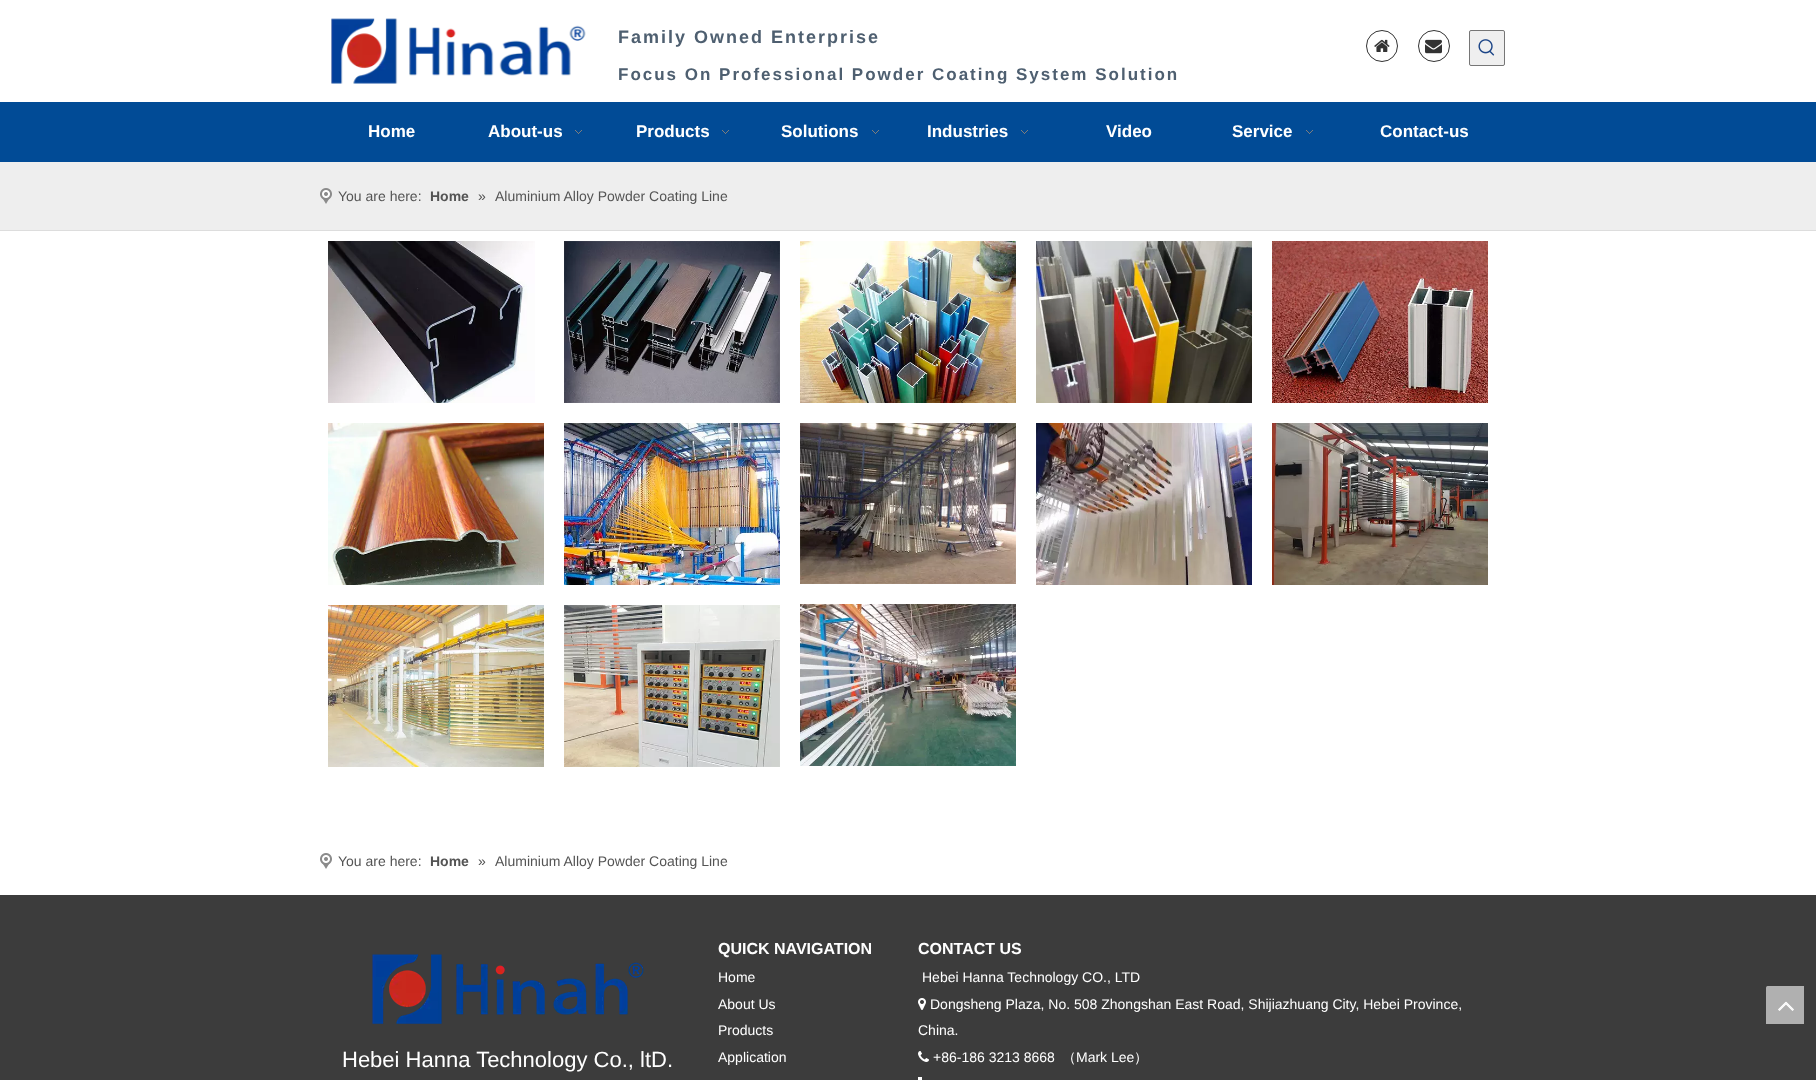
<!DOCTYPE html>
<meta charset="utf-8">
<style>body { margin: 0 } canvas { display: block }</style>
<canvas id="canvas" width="1816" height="1080"></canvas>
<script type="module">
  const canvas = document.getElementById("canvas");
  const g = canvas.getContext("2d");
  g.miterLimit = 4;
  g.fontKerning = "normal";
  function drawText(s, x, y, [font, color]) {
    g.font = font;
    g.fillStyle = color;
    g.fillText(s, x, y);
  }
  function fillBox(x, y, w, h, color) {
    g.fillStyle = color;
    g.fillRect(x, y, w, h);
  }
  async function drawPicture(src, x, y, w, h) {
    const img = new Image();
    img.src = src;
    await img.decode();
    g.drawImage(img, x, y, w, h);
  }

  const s1 = ["bold 18px Liberation Sans", "#4E5F70"];
  const s2 = ["bold 17px Liberation Sans", "#4E5F70"];
  const s3 = ["bold 17px Liberation Sans", "#FFFFFF"];
  const s4 = ["14px Liberation Sans", "#545454"];
  const s5 = ["bold 14px Liberation Sans", "#545454"];
  const s6 = ["22px Liberation Sans", "#FFFFFF"];
  const s7 = ["bold 16px Liberation Sans", "#FFFFFF"];
  const s8 = ["14px Liberation Sans", "#FFFFFF"];
  const s9 = ["500 14px WenQuanYi Zen Hei", "#FFFFFF"];

  fillBox(0, 0, 1816, 1080, "#FFFFFF");
  await drawPicture("pic1.png", 331, 18, 255, 66);
  g.letterSpacing = "2px";
  drawText("Family Owned Enterprise", 618, 43, s1);
  drawText("Focus On Professional Powder Coating System Solution", 618, 80, s2);
  g.beginPath();
  g.arc(1382, 46, 15.5, 0, Math.PI * 2);
  g.strokeStyle = "#333333";
  g.stroke();
  await drawPicture("pic2.png", 1374, 39, 16, 13);
  g.beginPath();
  g.arc(1434, 46, 15.5, 0, Math.PI * 2);
  g.stroke();
  await drawPicture("pic3.png", 1425, 39, 17, 15);
  g.fillStyle = "#EFEFEF";
  g.beginPath();
  g.roundRect(1469.5, 30.5, 35, 35, 1.5);
  g.fill();
  g.strokeStyle = "#767676";
  g.stroke();
  await drawPicture("pic4.png", 1478, 39, 17, 17);
  fillBox(0, 102, 1816, 60, "#014B96");
  g.letterSpacing = "0px";
  drawText("Home", 368, 137, s3);
  drawText("About-us", 488, 137, s3);
  await drawPicture("pic5.png", 575, 130, 7, 4);
  drawText("Products", 636, 137, s3);
  await drawPicture("pic5.png", 722, 130, 7, 4);
  drawText("Solutions", 781, 137, s3);
  await drawPicture("pic5.png", 872, 130, 7, 4);
  drawText("Industries", 927, 137, s3);
  await drawPicture("pic5.png", 1021, 130, 7, 4);
  drawText("Video", 1106, 137, s3);
  drawText("Service", 1232, 137, s3);
  await drawPicture("pic5.png", 1306, 130, 7, 4);
  drawText("Contact-us", 1380, 137, s3);
  fillBox(0, 162, 1816, 68, "#EEEEEE");
  fillBox(0, 230, 1816, 1, "#DDDDDD");
  await drawPicture("pic6.png", 320, 188, 12, 16);
  drawText("You are here:", 338, 201, s4);
  drawText("Home", 430, 201, s5);
  drawText("»", 478, 201, s4);
  drawText("Aluminium Alloy Powder Coating Line", 495, 201, s4);
  await drawPicture("pic7.png", 328, 241, 207, 162);
  await drawPicture("pic8.png", 564, 241, 216, 162);
  await drawPicture("pic9.png", 800, 241, 216, 162);
  await drawPicture("pic10.png", 1036, 241, 216, 162);
  await drawPicture("pic11.png", 1272, 241, 216, 162);
  await drawPicture("pic12.png", 328, 423, 216, 162);
  await drawPicture("pic13.png", 564, 423, 216, 162);
  await drawPicture("pic14.png", 800, 423, 216, 161);
  await drawPicture("pic15.png", 1036, 423, 216, 162);
  await drawPicture("pic16.png", 1272, 423, 216, 162);
  await drawPicture("pic17.png", 328, 605, 216, 162);
  await drawPicture("pic18.png", 564, 605, 216, 162);
  await drawPicture("pic19.png", 800, 604, 216, 162);
  await drawPicture("pic20.png", 320, 853, 12, 16);
  drawText("You are here:", 338, 866, s4);
  drawText("Home", 430, 866, s5);
  drawText("»", 478, 866, s4);
  drawText("Aluminium Alloy Powder Coating Line", 495, 866, s4);
  fillBox(0, 895, 1816, 185, "#3C3C3C");
  await drawPicture("pic21.png", 372, 954, 272, 70);
  drawText("Hebei Hanna Technology Co., ltD.", 342, 1067, s6);
  drawText("QUICK NAVIGATION", 718, 954, s7);
  drawText("Home", 718, 982, s8);
  drawText("About Us", 718, 1009, s8);
  drawText("Products", 718, 1035, s8);
  drawText("Application", 718, 1062, s8);
  drawText("CONTACT US", 918, 954, s7);
  drawText("Hebei Hanna Technology CO., LTD", 922, 982, s8);
  await drawPicture("pic22.png", 918, 998, 8, 12);
  drawText("Dongsheng Plaza, No. 508 Zhongshan East Road, Shijiazhuang City, Hebei Province,", 930, 1009, s8);
  drawText("China.", 918, 1035, s8);
  await drawPicture("pic23.png", 918, 1051, 11, 11);
  drawText("+86-186 3213 8668", 933, 1062, s8);
  drawText("（", 1062, 1062, s9);
  drawText("Mark Lee", 1076, 1062, s8);
  drawText("）", 1134, 1062, s9);
  fillBox(918, 1077, 4, 3, "#FFFFFF");
  await drawPicture("pic24.png", 1766, 986, 38, 38);
</script>
